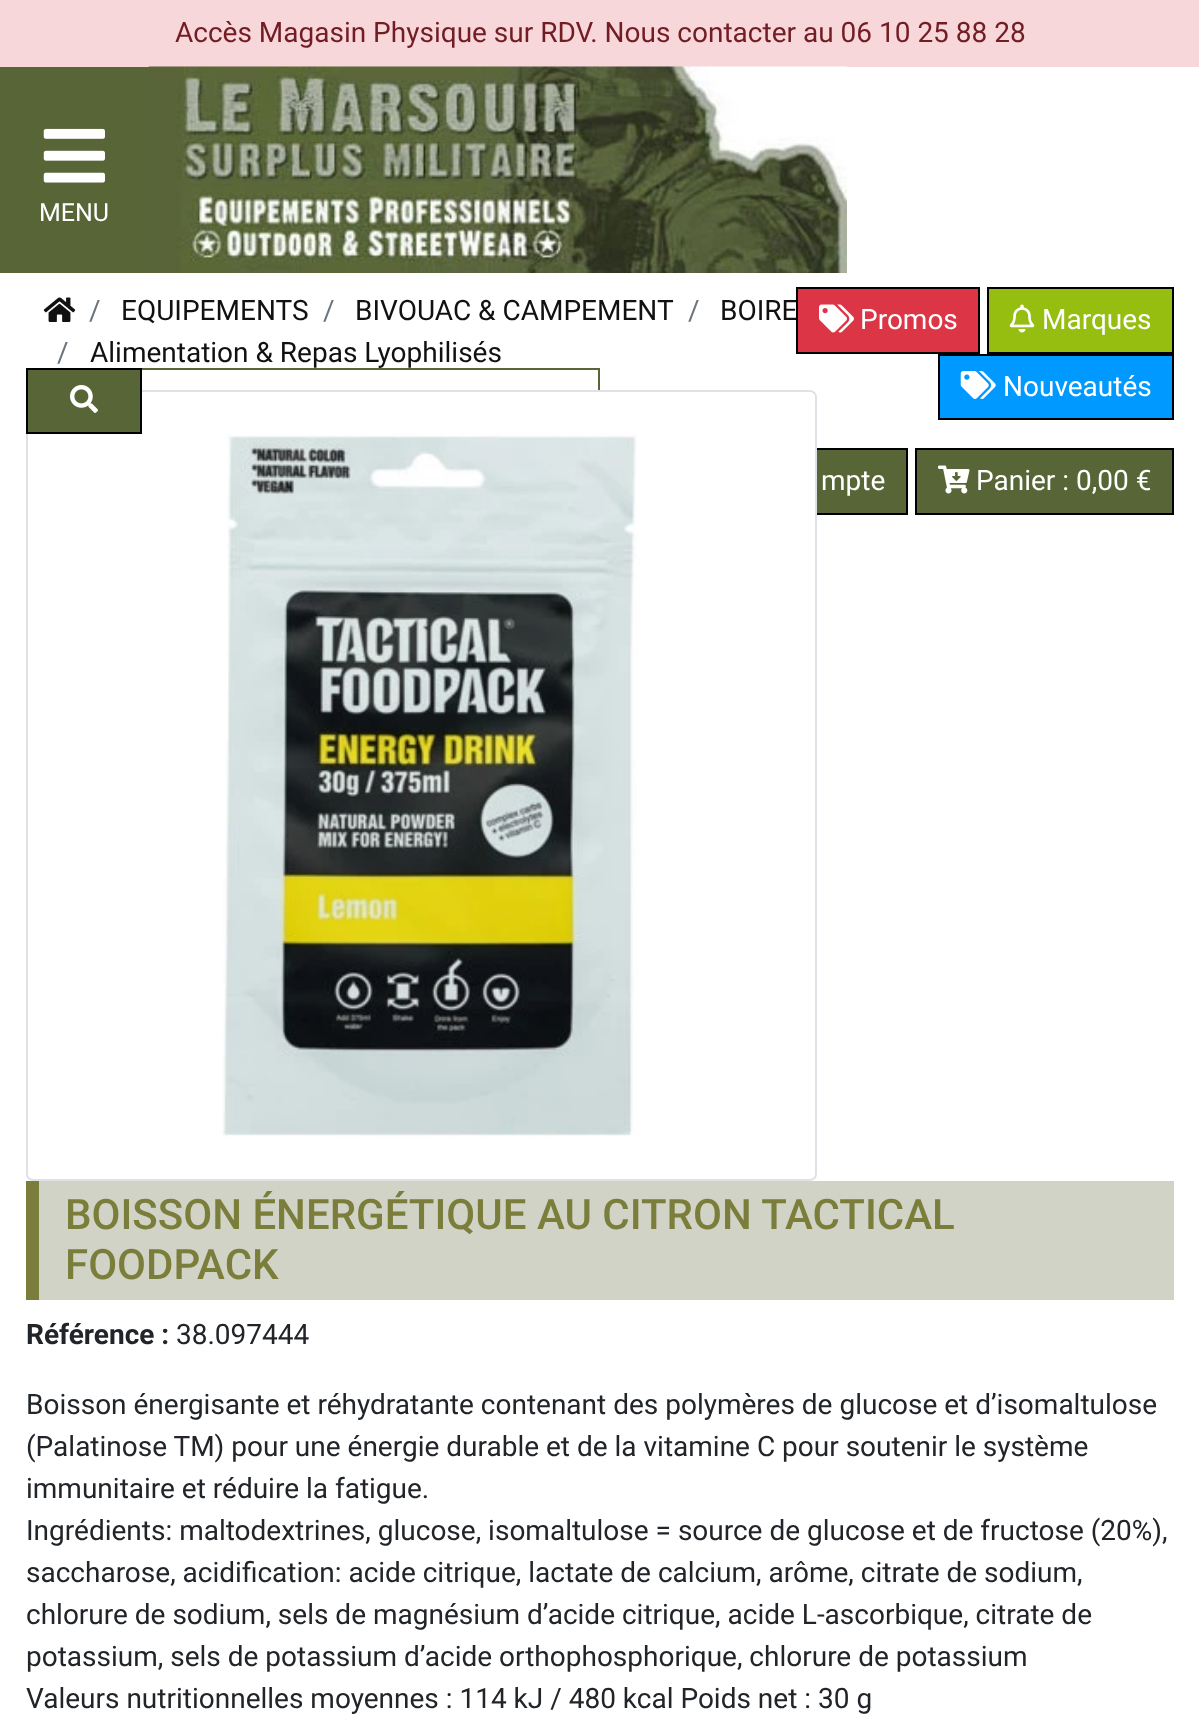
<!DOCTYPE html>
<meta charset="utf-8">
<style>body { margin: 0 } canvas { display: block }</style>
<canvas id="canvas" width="1199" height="1734"></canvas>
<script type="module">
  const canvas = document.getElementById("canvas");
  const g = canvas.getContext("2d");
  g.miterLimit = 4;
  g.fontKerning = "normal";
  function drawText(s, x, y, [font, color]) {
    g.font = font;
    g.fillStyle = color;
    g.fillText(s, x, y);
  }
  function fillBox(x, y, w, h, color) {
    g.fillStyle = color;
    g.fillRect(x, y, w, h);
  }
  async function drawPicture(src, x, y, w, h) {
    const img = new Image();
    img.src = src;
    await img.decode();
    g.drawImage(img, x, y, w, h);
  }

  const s1 = ["28px Roboto", "#721C24"];
  const s2 = ["25px Roboto", "#FFFFFF"];
  const s3 = ["28px Roboto", "#111111"];
  const s4 = ["28px Roboto", "#FFFFFF"];
  const s5 = ["28px Roboto", "#6C757D"];
  const s6 = ["500 42px Roboto", "#7A7E3A"];
  const s7 = ["bold 28px Roboto", "#212529"];
  const s8 = ["28px Roboto", "#212529"];

  fillBox(0, 0, 1199, 1734, "#FFFFFF");
  fillBox(0, 0, 1199, 67, "#F8D7DA");
  drawText("Accès Magasin Physique sur RDV. Nous contacter au 06 10 25 88 28", 175, 42, s1);
  fillBox(0, 67, 149, 206, "#586537");
  await drawPicture("pic1.png", 43, 128, 62, 55);
  drawText("MENU", 39, 221, s2);
  await drawPicture("pic2.png", 148, 66, 699, 207);
  g.strokeStyle = "#586537";
  g.lineWidth = 2;
  g.strokeRect(141, 369, 458, 64);
  fillBox(817, 450, 89, 63, "#586537");
  g.strokeStyle = "#000000";
  g.strokeRect(671, 449, 236, 65);
  g.fillStyle = "#FFFFFF";
  g.beginPath();
  g.roundRect(27, 391, 789, 789, 6);
  g.fill();
  g.strokeStyle = "#DEE2E6";
  g.stroke();
  g.fillStyle = "#586537";
  g.beginPath();
  g.rect(27, 369, 114, 64);
  g.fill();
  g.strokeStyle = "#000000";
  g.stroke();
  await drawPicture("pic3.png", 70, 385, 28, 28);
  drawText("BOIRE", 720, 320, s3);
  g.fillStyle = "#DC3545";
  g.beginPath();
  g.rect(797, 288, 182, 65);
  g.fill();
  g.stroke();
  await drawPicture("pic4.png", 819, 304, 35, 29);
  drawText("Promos", 860, 329, s4);
  g.fillStyle = "#95BE10";
  g.beginPath();
  g.rect(988, 288, 185, 65);
  g.fill();
  g.stroke();
  await drawPicture("pic5.png", 1009, 304, 26, 29);
  drawText("Marques", 1042, 329, s4);
  g.fillStyle = "#0099FF";
  g.beginPath();
  g.rect(939, 355, 234, 64);
  g.fill();
  g.stroke();
  await drawPicture("pic6.png", 960, 371, 36, 28);
  drawText("Nouveautés", 1003, 396, s4);
  drawText("mpte", 821, 490, s4);
  g.fillStyle = "#586537";
  g.beginPath();
  g.rect(916, 449, 257, 65);
  g.fill();
  g.stroke();
  await drawPicture("pic7.png", 938, 465, 32, 29);
  drawText("Panier : 0,00 €", 976, 490, s4);
  await drawPicture("pic8.png", 43, 297, 33, 25);
  drawText("/", 89, 320, s5);
  drawText("EQUIPEMENTS", 121, 320, s3);
  drawText("/", 323, 320, s5);
  drawText("BIVOUAC & CAMPEMENT", 355, 320, s3);
  drawText("/", 688, 320, s5);
  drawText("/", 57, 362, s5);
  drawText("Alimentation & Repas Lyophilisés", 90, 362, s3);
  await drawPicture("pic9.png", 222, 434, 415, 703);
  fillBox(39, 1181, 1135, 119, "#D0D3C6");
  fillBox(26, 1181, 13, 119, "#7A7E3A");
  drawText("BOISSON ÉNERGÉTIQUE AU CITRON TACTICAL", 65, 1229, s6);
  drawText("FOODPACK", 65, 1279, s6);
  drawText("Référence :", 26, 1344, s7);
  drawText("38.097444", 176, 1344, s8);
  drawText("Boisson énergisante et réhydratante contenant des polymères de glucose et d’isomaltulose", 26, 1414, s8);
  drawText("(Palatinose TM) pour une énergie durable et de la vitamine C pour soutenir le système", 26, 1456, s8);
  drawText("immunitaire et réduire la fatigue.", 26, 1498, s8);
  drawText("Ingrédients: maltodextrines, glucose, isomaltulose = source de glucose et de fructose (20%),", 26, 1540, s8);
  drawText("saccharose, acidification: acide citrique, lactate de calcium, arôme, citrate de sodium,", 26, 1582, s8);
  drawText("chlorure de sodium, sels de magnésium d’acide citrique, acide L-ascorbique, citrate de", 26, 1624, s8);
  drawText("potassium, sels de potassium d’acide orthophosphorique, chlorure de potassium", 26, 1666, s8);
  drawText("Valeurs nutritionnelles moyennes : 114 kJ / 480 kcal Poids net : 30 g", 26, 1708, s8);
</script>
